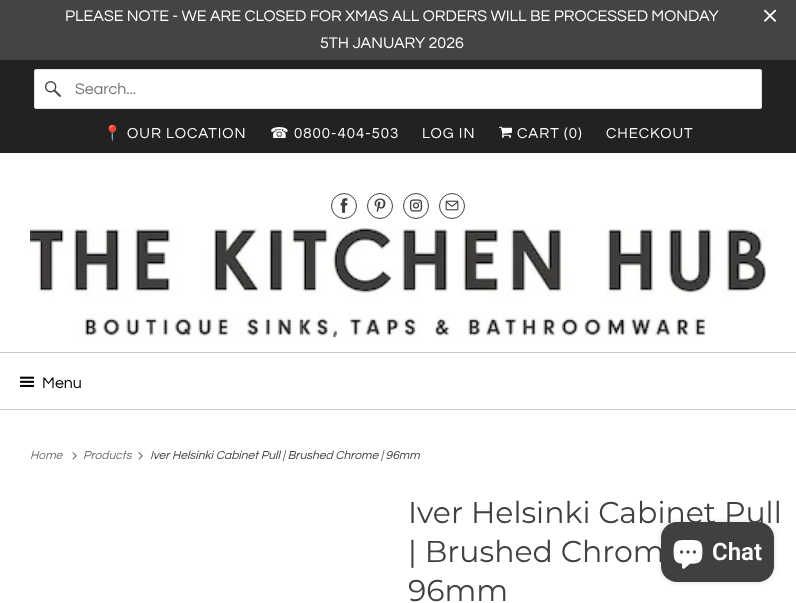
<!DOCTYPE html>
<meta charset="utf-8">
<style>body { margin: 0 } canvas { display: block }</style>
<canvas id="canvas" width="796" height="603"></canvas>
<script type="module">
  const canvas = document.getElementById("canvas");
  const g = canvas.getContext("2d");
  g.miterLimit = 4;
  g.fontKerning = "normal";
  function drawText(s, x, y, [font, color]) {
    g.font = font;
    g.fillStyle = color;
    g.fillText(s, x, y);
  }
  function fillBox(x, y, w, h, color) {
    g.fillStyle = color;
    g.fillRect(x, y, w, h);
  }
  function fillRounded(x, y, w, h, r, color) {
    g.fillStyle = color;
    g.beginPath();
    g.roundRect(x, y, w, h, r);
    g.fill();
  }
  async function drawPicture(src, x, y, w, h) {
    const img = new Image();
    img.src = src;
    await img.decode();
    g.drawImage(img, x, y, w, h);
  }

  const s1 = ["16px Questrial", "#FFFFFF"];
  const s2 = ["16px Questrial", "#757575"];
  const s3 = ["15px Noto Color Emoji", "#FFFFFF"];
  const s4 = ["15px Questrial", "#FFFFFF"];
  const s5 = ["15px DejaVu Sans", "#FFFFFF"];
  const s6 = ["16px Questrial", "#000000"];
  const s7 = ["italic 12px Questrial", "#6C6C6C"];
  const s8 = ["italic 12px Questrial", "#404040"];
  const s9 = ["30px Montserrat", "#404040"];
  const s10 = ["600 24px Roboto", "#FFFFFF"];

  fillBox(0, 0, 796, 603, "#FFFFFF");
  fillBox(0, 0, 796, 60, "#444444");
  drawText("PLEASE NOTE - WE ARE CLOSED FOR XMAS ALL ORDERS WILL BE PROCESSED MONDAY", 65, 21, s1);
  drawText("5TH JANUARY 2026", 320, 48, s1);
  await drawPicture("pic1.png", 764, 9, 12, 13);
  fillBox(0, 60, 796, 93, "#222222");
  g.fillStyle = "#FFFFFF";
  g.beginPath();
  g.roundRect(34.5, 69.5, 727, 39, 1.5);
  g.fill();
  g.strokeStyle = "#DFDFDF";
  g.stroke();
  await drawPicture("pic2.png", 45, 81, 16, 16);
  drawText("Search...", 75, 94, s2);
  g.letterSpacing = "1px";
  drawText("📍", 103, 138, s3);
  drawText("OUR LOCATION", 127, 138, s4);
  drawText("☎︎", 270, 138, s5);
  drawText("0800-404-503", 294, 138, s4);
  drawText("LOG IN", 422, 138, s4);
  await drawPicture("pic3.png", 499, 126, 13, 12);
  drawText("CART (0)", 517, 138, s4);
  drawText("CHECKOUT", 606, 138, s4);
  g.beginPath();
  g.arc(344, 206, 12.5, 0, Math.PI * 2);
  g.strokeStyle = "#404040";
  g.stroke();
  await drawPicture("pic4.png", 340, 198, 8, 15);
  g.beginPath();
  g.arc(380, 206, 12.5, 0, Math.PI * 2);
  g.stroke();
  await drawPicture("pic5.png", 374, 198, 12, 15);
  g.beginPath();
  g.arc(416, 206, 12.5, 0, Math.PI * 2);
  g.stroke();
  await drawPicture("pic6.png", 409, 199, 14, 13);
  g.beginPath();
  g.arc(452, 206, 12.5, 0, Math.PI * 2);
  g.stroke();
  await drawPicture("pic7.png", 445, 200, 14, 11);
  await drawPicture("pic8.png", 30, 228, 736, 109);
  fillBox(0, 352, 796, 1, "#CEC6BF");
  fillBox(0, 409, 796, 1, "#CEC6BF");
  await drawPicture("pic9.png", 20, 376, 14, 11);
  g.letterSpacing = "0px";
  drawText("Menu", 42, 388, s6);
  drawText("Home", 30, 459, s7);
  await drawPicture("pic10.png", 72, 452, 5, 8);
  drawText("Products", 83, 459, s7);
  await drawPicture("pic10.png", 138, 452, 5, 8);
  drawText("Iver Helsinki Cabinet Pull | Brushed Chrome | 96mm", 150, 459, s8);
  drawText("Iver Helsinki Cabinet Pull", 408, 523, s9);
  drawText("| Brushed Chrom", 408, 562, s9);
  drawText("96mm", 408, 601, s9);
  g.fillStyle = "rgba(0, 0, 0, 0.15)";
  g.filter = "blur(2.5px)";
  g.beginPath();
  g.roundRect(661, 522, 113, 60, 16);
  g.fill();
  g.filter = "none";
  fillRounded(661, 522, 113, 60, 16, "#404040");
  await drawPicture("pic11.png", 673, 540, 30, 29);
  drawText("Chat", 712, 560, s10);
</script>
